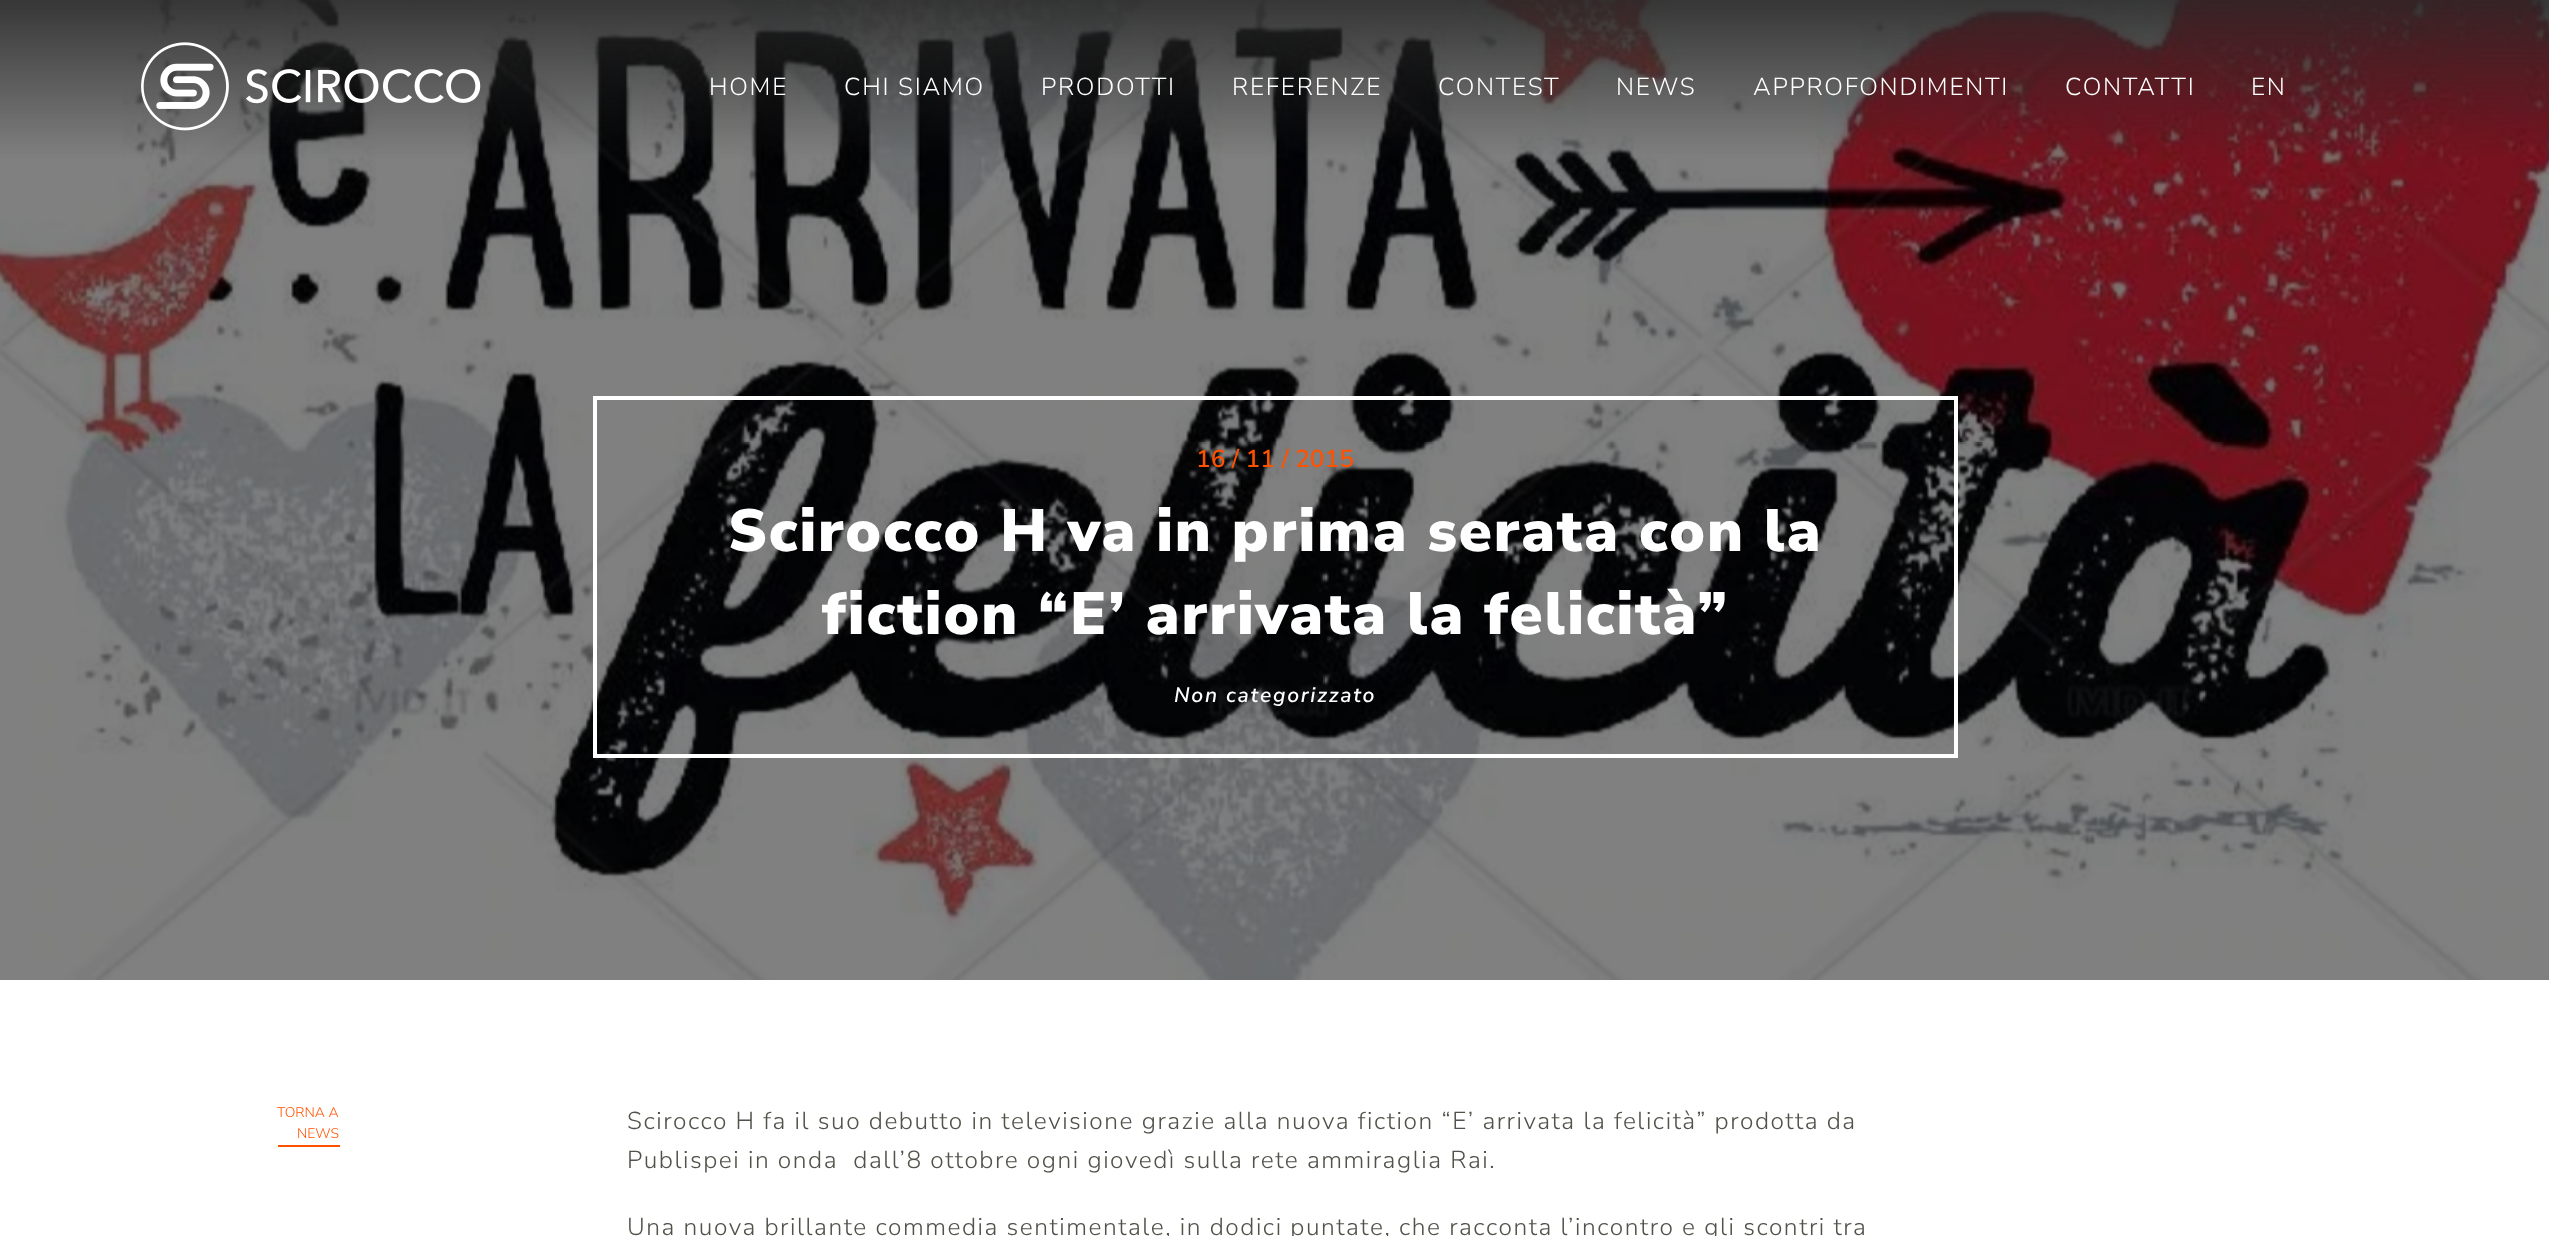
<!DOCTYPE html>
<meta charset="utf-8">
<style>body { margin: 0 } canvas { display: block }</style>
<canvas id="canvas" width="2549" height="1236"></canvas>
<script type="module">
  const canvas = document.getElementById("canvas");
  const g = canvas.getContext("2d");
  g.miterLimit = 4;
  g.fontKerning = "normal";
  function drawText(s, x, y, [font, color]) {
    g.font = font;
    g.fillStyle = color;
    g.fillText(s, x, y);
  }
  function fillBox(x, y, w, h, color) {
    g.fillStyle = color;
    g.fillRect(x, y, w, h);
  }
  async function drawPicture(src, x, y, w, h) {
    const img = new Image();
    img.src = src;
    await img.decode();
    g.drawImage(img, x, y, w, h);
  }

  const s1 = ["300 24.5px Nunito Sans", "#FFFFFF"];
  const s2 = ["600 24.5px Nunito Sans", "#FF5200"];
  const s3 = ["900 59.5px Nunito Sans", "#FFFFFF"];
  const s4 = ["italic 200 21px Nunito Sans", "#FFFFFF"];
  const s5 = ["300 14px Nunito Sans", "#FF5200"];
  const s6 = ["300 24.5px Nunito Sans", "#51534A"];

  fillBox(0, 0, 2549, 1236, "#FFFFFF");
  await drawPicture("pic2.png", 0, 0, 2549, 980);
  await drawPicture("pic1.png", 141, 42, 340, 89);
  g.letterSpacing = "1.75px";
  drawText("HOME", 709, 95, s1);
  drawText("CHI SIAMO", 844, 95, s1);
  drawText("PRODOTTI", 1041, 95, s1);
  drawText("REFERENZE", 1232, 95, s1);
  drawText("CONTEST", 1438, 95, s1);
  drawText("NEWS", 1616, 95, s1);
  drawText("APPROFONDIMENTI", 1753, 95, s1);
  drawText("CONTATTI", 2065, 95, s1);
  drawText("EN", 2251, 95, s1);
  g.strokeStyle = "#FFFFFF";
  g.lineWidth = 4;
  g.strokeRect(595, 398, 1361, 358);
  g.letterSpacing = "0px";
  drawText("16 / 11 / 2015", 1196, 467, s2);
  g.letterSpacing = "1.95px";
  drawText("Scirocco H va in prima serata con la", 728, 551, s3);
  drawText("fiction “E’ arrivata la felicità”", 822, 634, s3);
  g.letterSpacing = "1.75px";
  drawText("Non categorizzato", 1174, 702, s4);
  fillBox(278, 1145, 62, 2, "#FF5200");
  g.letterSpacing = "0px";
  drawText("TORNA A", 277, 1117, s5);
  drawText("NEWS", 297, 1138, s5);
  g.letterSpacing = "1.54px";
  drawText("Scirocco H fa il suo debutto in televisione grazie alla nuova fiction “E’ arrivata la felicità” prodotta da", 627, 1129, s6);
  drawText("Publispei in onda  dall’8 ottobre ogni giovedì sulla rete ammiraglia Rai.", 627, 1168, s6);
  drawText("Una nuova brillante commedia sentimentale, in dodici puntate, che racconta l’incontro e gli scontri tra", 627, 1235, s6);
</script>
